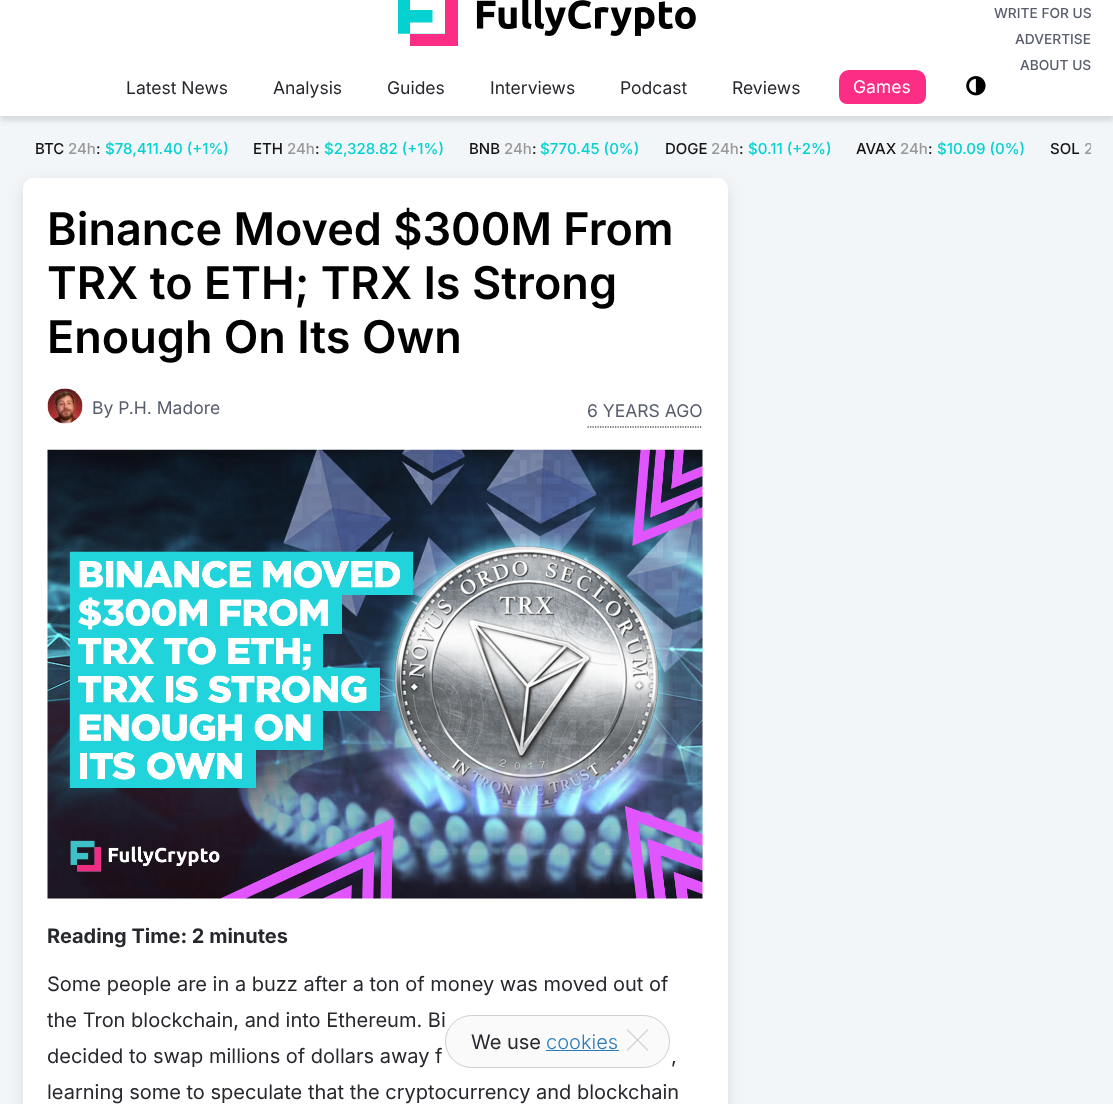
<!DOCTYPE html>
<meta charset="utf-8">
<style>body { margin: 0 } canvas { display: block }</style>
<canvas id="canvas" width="1113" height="1104"></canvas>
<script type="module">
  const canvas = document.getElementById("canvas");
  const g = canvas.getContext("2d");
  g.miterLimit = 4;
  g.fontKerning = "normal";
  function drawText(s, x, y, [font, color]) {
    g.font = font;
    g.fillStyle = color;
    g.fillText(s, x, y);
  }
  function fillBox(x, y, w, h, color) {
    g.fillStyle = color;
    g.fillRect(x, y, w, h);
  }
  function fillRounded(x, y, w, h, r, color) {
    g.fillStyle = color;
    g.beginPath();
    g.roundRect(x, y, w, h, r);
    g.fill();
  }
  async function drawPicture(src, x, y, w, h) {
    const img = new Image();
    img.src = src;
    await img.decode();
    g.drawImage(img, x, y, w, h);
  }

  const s1 = ["500 13.75px Inter", "#585D6D"];
  const s2 = ["17.5px Inter", "#27282D"];
  const s3 = ["17.5px Inter", "#FFFFFF"];
  const s4 = ["500 15px Inter", "#141414"];
  const s5 = ["500 15px Inter", "#999999"];
  const s6 = ["500 15px Inter", "#05D1D1"];
  const s7 = ["600 45px Inter", "#010101"];
  const s8 = ["17.5px Inter", "#585D6D"];
  const s9 = ["bold 20px Inter", "#27282D"];
  const s10 = ["20px Inter", "#27282D"];
  const s11 = ["300 20px Inter", "#2B7BB9"];

  fillBox(0, 0, 1113, 1104, "#F2F6F9");
  fillBox(0, 0, 1113, 59, "#FFFFFF");
  await drawPicture("pic1.png", 398, 0, 298, 46);
  drawText("WRITE FOR US", 994, 18, s1);
  drawText("ADVERTISE", 1015, 44, s1);
  g.fillStyle = "rgba(0, 0, 0, 0.1)";
  g.filter = "blur(2.5px)";
  g.beginPath();
  g.rect(0, 64, 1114, 57);
  g.fill();
  g.filter = "none";
  fillBox(0, 59, 1113, 57, "#FFFFFF");
  drawText("ABOUT US", 1020, 70, s1);
  drawText("Latest News", 126, 94, s2);
  drawText("Analysis", 273, 94, s2);
  drawText("Guides", 387, 94, s2);
  drawText("Interviews", 490, 94, s2);
  drawText("Podcast", 620, 94, s2);
  drawText("Reviews", 732, 94, s2);
  g.fillStyle = "#FC2D84";
  g.beginPath();
  g.roundRect(839, 70, 87, 34, [10, 10, 8, 8]);
  g.fill();
  drawText("Games", 853, 93, s3);
  await drawPicture("pic2.png", 966, 76, 20, 20);
  drawText("BTC", 35, 154, s4);
  drawText("24h", 68, 154, s5);
  drawText(":", 96, 154, s4);
  drawText("$78,411.40 (+1%)", 105, 154, s6);
  drawText("ETH", 253, 154, s4);
  drawText("24h", 287, 154, s5);
  drawText(":", 315, 154, s4);
  drawText("$2,328.82 (+1%)", 324, 154, s6);
  drawText("BNB", 469, 154, s4);
  drawText("24h", 504, 154, s5);
  drawText(":", 532, 154, s4);
  drawText("$770.45 (0%)", 540, 154, s6);
  drawText("DOGE", 665, 154, s4);
  drawText("24h", 711, 154, s5);
  drawText(":", 739, 154, s4);
  drawText("$0.11 (+2%)", 748, 154, s6);
  drawText("AVAX", 856, 154, s4);
  drawText("24h", 900, 154, s5);
  drawText(":", 928, 154, s4);
  drawText("$10.09 (0%)", 937, 154, s6);
  drawText("SOL", 1050, 154, s4);
  g.save();
  g.beginPath();
  g.rect(23, 116, 1068, 62);
  g.clip();
  drawText("2", 1084, 154, s5);
  g.restore();
  g.fillStyle = "rgba(0, 0, 0, 0.1)";
  g.filter = "blur(7.5px)";
  g.beginPath();
  g.roundRect(23, 183, 705, 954, 10);
  g.fill();
  g.filter = "none";
  fillRounded(23, 178, 705, 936, 10, "#FFFFFF");
  drawText("Binance Moved $300M From", 47, 245, s7);
  drawText("TRX to ETH; TRX Is Strong", 47, 299, s7);
  drawText("Enough On Its Own", 47, 353, s7);
  await drawPicture("pic3.png", 47, 388, 36, 36);
  drawText("By P.H. Madore", 92, 414, s8);
  g.beginPath();
  g.moveTo(587.5, 427);
  g.lineTo(702.5, 427);
  g.strokeStyle = "#000000";
  g.lineWidth = 1.2;
  g.setLineDash([1.25, 1.25]);
  g.stroke();
  drawText("6 YEARS AGO", 587, 417, s8);
  await drawPicture("pic4.png", 47, 449, 656, 450);
  drawText("Reading Time: 2 minutes", 47, 943, s9);
  drawText("Some people are in a buzz after a ton of money was moved out of", 47, 991, s10);
  drawText("the Tron blockchain, and into Ethereum. Bi", 47, 1027, s10);
  drawText("decided to swap millions of dollars away f", 47, 1063, s10);
  drawText(",", 671, 1063, s10);
  drawText("learning some to speculate that the cryptocurrency and blockchain", 47, 1099, s10);
  g.fillStyle = "#FAFAFA";
  g.beginPath();
  g.roundRect(445.5, 1015.5, 224, 52, 26);
  g.fill();
  g.strokeStyle = "#CFCFCF";
  g.lineWidth = 1;
  g.setLineDash([]);
  g.stroke();
  drawText("We use", 471, 1049, s10);
  drawText("cookies", 546, 1049, s11);
  fillBox(546, 1050, 73, 1, "#2B7BB9");
  g.fillStyle = "#D5D5D5";
  g.beginPath();
  g.moveTo(647.5, 1029);
  g.lineTo(648.5, 1030);
  g.lineTo(627.5, 1051);
  g.lineTo(626.5, 1050);
  g.closePath();
  g.fill();
  g.beginPath();
  g.moveTo(626.5, 1030);
  g.lineTo(627.5, 1029);
  g.lineTo(648.5, 1050);
  g.lineTo(647.5, 1051);
  g.closePath();
  g.fill();
</script>
